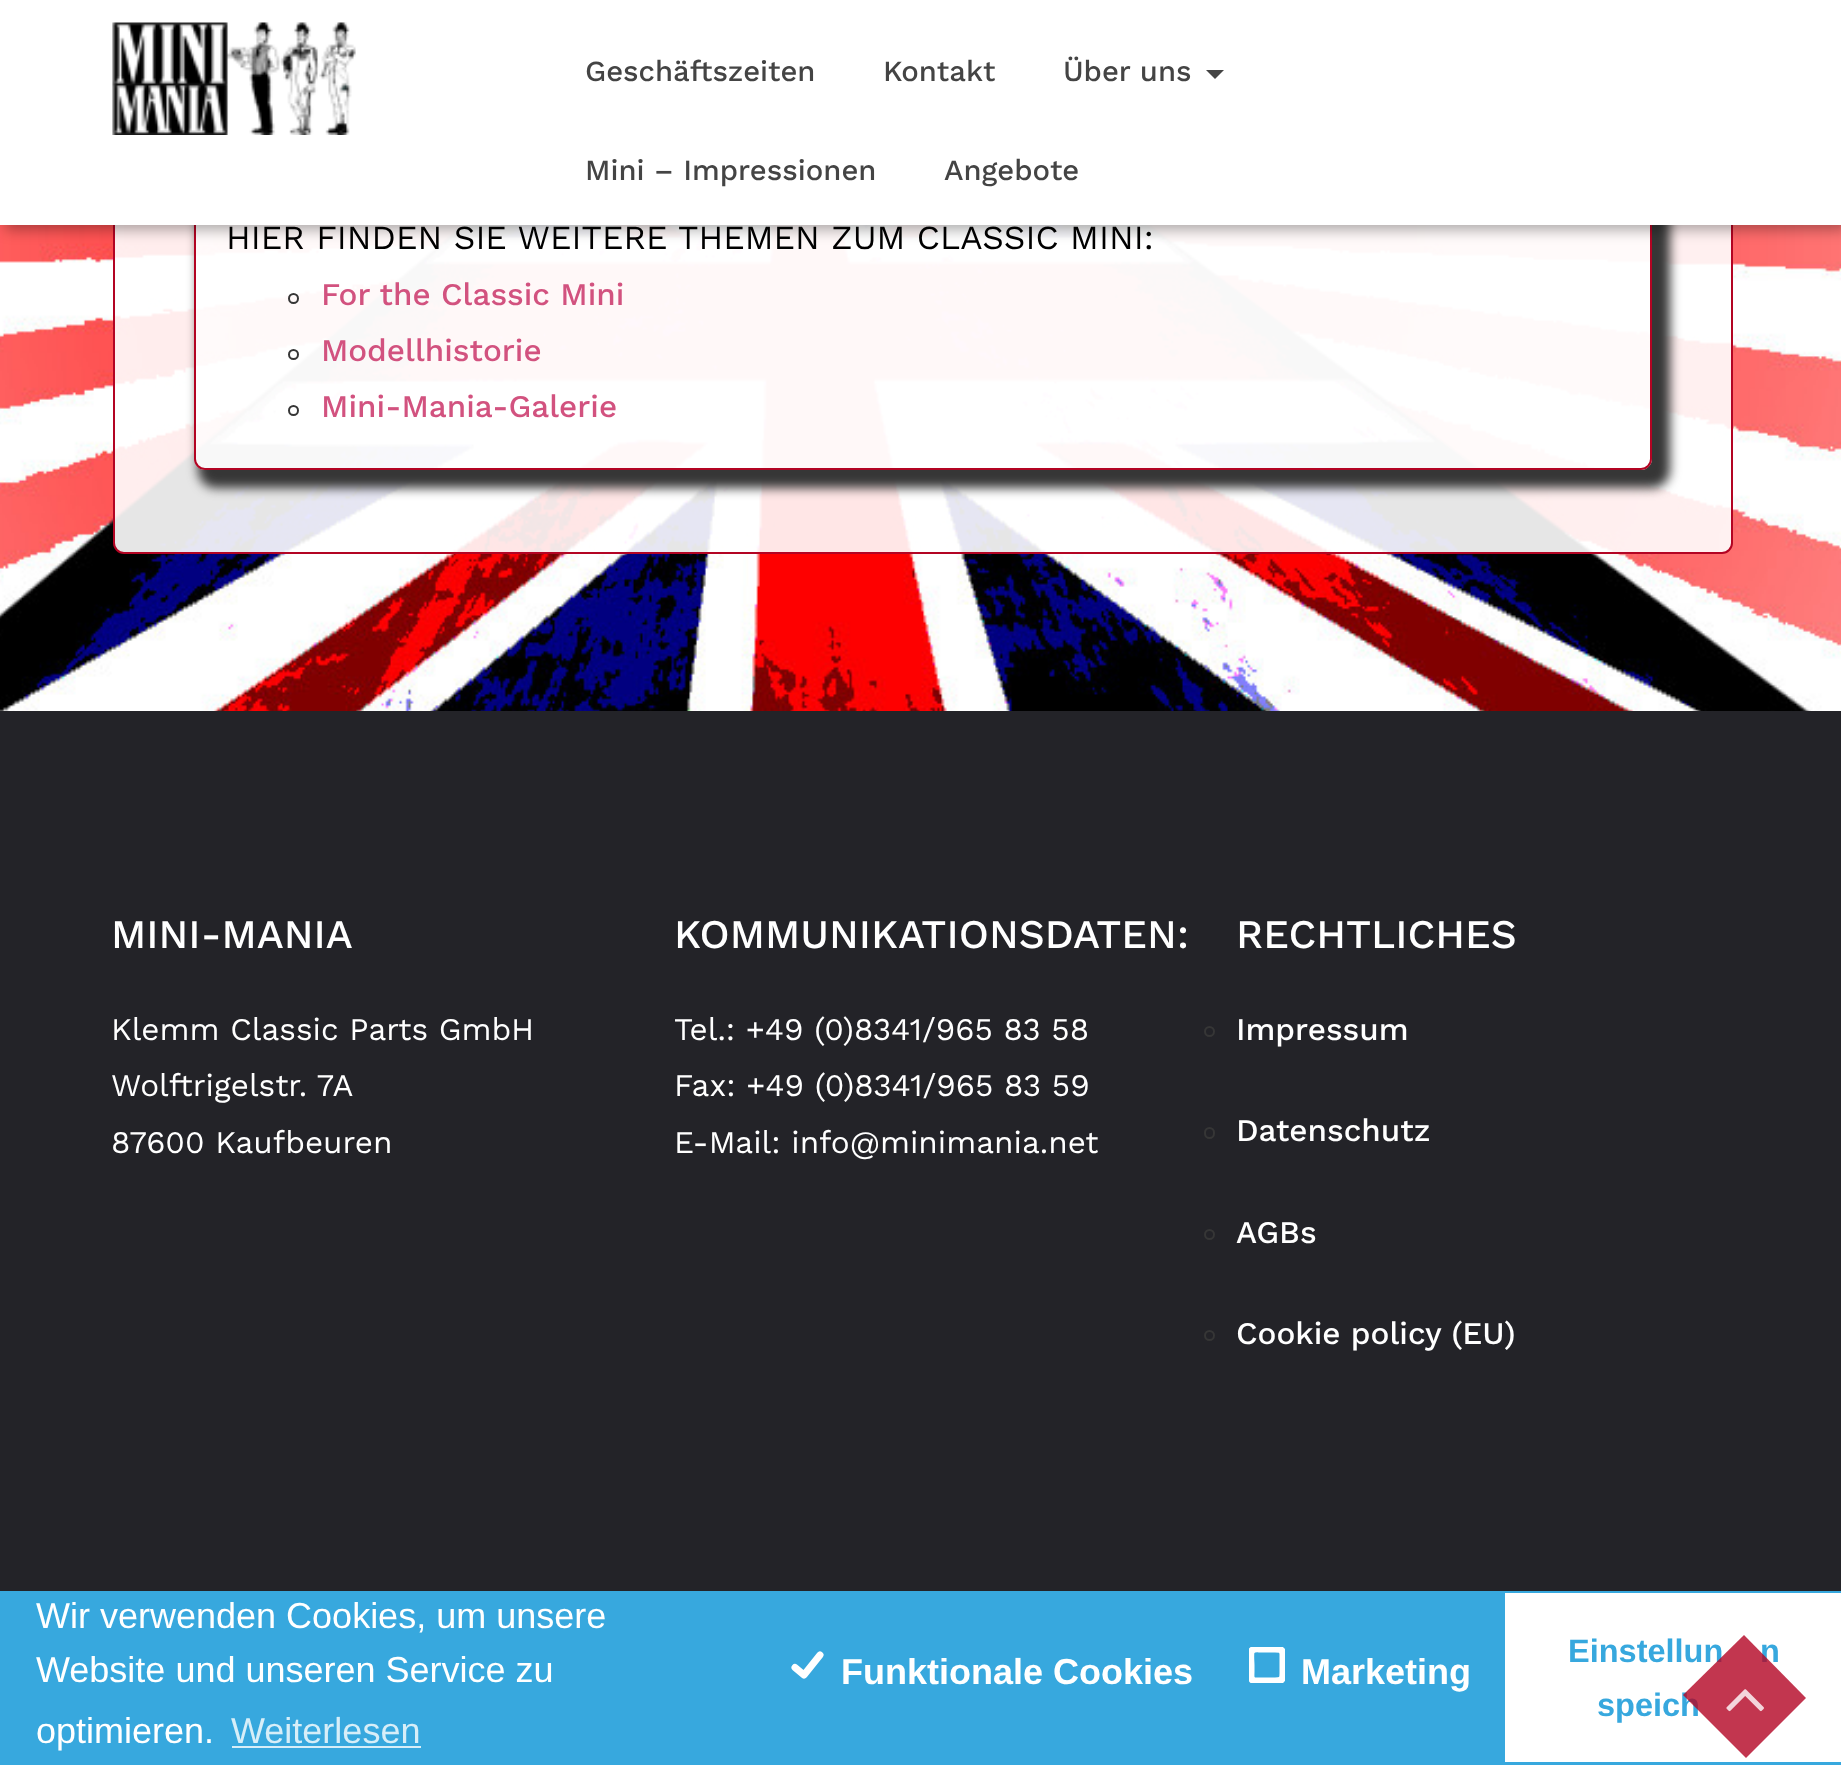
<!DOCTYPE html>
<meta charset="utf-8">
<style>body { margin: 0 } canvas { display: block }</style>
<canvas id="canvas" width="1841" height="1765"></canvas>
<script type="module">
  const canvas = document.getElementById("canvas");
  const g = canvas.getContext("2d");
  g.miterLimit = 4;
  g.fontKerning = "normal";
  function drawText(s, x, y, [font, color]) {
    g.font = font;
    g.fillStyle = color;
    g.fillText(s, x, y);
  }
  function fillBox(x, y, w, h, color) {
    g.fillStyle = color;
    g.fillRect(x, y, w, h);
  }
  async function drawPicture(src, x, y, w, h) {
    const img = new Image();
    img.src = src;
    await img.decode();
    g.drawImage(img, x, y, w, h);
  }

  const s1 = ["500 29.25px Work Sans", "#444444"];
  const s2 = ["33.75px Work Sans", "#000000"];
  const s3 = ["500 31.5px Work Sans", "#D2527F"];
  const s4 = ["500 40.5px Work Sans", "#FFFFFF"];
  const s5 = ["31.5px Work Sans", "#FFFFFF"];
  const s6 = ["500 31.5px Work Sans", "#FFFFFF"];
  const s7 = ["36px Liberation Sans", "#FFFFFF"];
  const s8 = ["36px Liberation Sans", "#D7EEF8"];
  const s9 = ["bold 36px Liberation Sans", "#FFFFFF"];
  const s10 = ["bold 32.5px Liberation Sans", "#37A8DE"];

  fillBox(0, 0, 1841, 1765, "#FFFFFF");
  await drawPicture("pic2.png", 0, 225, 1841, 486);
  g.fillStyle = "rgba(255, 255, 255, 0.9)";
  g.beginPath();
  g.roundRect(114, -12, 1618, 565, 10);
  g.fill();
  g.strokeStyle = "#B30423";
  g.lineWidth = 2;
  g.stroke();
  g.save();
  g.beginPath();
  g.moveTo(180, 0);
  g.lineTo(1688, 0);
  g.lineTo(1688, 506);
  g.lineTo(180, 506);
  g.closePath();
  g.moveTo(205, 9);
  g.lineTo(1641, 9);
  g.bezierCurveTo(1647, 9, 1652, 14, 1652, 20);
  g.lineTo(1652, 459);
  g.bezierCurveTo(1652, 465, 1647, 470, 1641, 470);
  g.lineTo(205, 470);
  g.bezierCurveTo(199, 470, 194, 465, 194, 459);
  g.lineTo(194, 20);
  g.bezierCurveTo(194, 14, 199, 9, 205, 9);
  g.closePath();
  g.clip("evenodd");
  g.fillStyle = "#363636";
  g.filter = "blur(5.5px)";
  g.beginPath();
  g.roundRect(198, 14, 1472, 474, 18);
  g.fill();
  g.filter = "none";
  g.restore();
  g.fillStyle = "rgba(255, 255, 255, 0.7)";
  g.beginPath();
  g.roundRect(195, 10, 1456, 459, 10);
  g.fill();
  g.stroke();
  g.fillStyle = "rgba(0, 0, 0, 0.32)";
  g.filter = "blur(7px)";
  g.beginPath();
  g.rect(5, 5, 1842, 225);
  g.fill();
  g.filter = "none";
  fillBox(0, 0, 1841, 225, "#FFFFFF");
  await drawPicture("pic1.png", 112, 22, 244, 113);
  drawText("Geschäftszeiten", 585, 81, s1);
  drawText("Kontakt", 883, 81, s1);
  drawText("Über uns", 1063, 81, s1);
  g.beginPath();
  g.moveTo(1206, 70);
  g.lineTo(1224, 70);
  g.lineTo(1215, 79);
  g.closePath();
  g.fill();
  drawText("Mini – Impressionen", 585, 180, s1);
  drawText("Angebote", 944, 180, s1);
  drawText("HIER FINDEN SIE WEITERE THEMEN ZUM CLASSIC MINI:", 226, 249, s2);
  g.beginPath();
  g.arc(293.5, 298.5, 4.5, 0, Math.PI * 2);
  g.strokeStyle = "#363636";
  g.stroke();
  drawText("For the Classic Mini", 321, 305, s3);
  g.beginPath();
  g.arc(293.5, 354.5, 4.5, 0, Math.PI * 2);
  g.stroke();
  drawText("Modellhistorie", 321, 361, s3);
  g.beginPath();
  g.arc(293.5, 410.5, 4.5, 0, Math.PI * 2);
  g.stroke();
  drawText("Mini-Mania-Galerie", 321, 417, s3);
  fillBox(0, 711, 1841, 880, "#232328");
  drawText("MINI-MANIA", 111, 948, s4);
  drawText("Klemm Classic Parts GmbH", 111, 1040, s5);
  drawText("Wolftrigelstr. 7A", 111, 1096, s5);
  drawText("87600 Kaufbeuren", 111, 1153, s5);
  drawText("KOMMUNIKATIONSDATEN:", 674, 948, s4);
  drawText("Tel.: +49 (0)8341/965 83 58", 674, 1040, s5);
  drawText("Fax: +49 (0)8341/965 83 59", 674, 1096, s5);
  drawText("E-Mail: info@minimania.net", 674, 1153, s5);
  drawText("RECHTLICHES", 1236, 948, s4);
  g.beginPath();
  g.arc(1209.5, 1031.5, 4.5, 0, Math.PI * 2);
  g.stroke();
  drawText("Impressum", 1236, 1040, s6);
  g.beginPath();
  g.roundRect(1205, 1128, 9, 10, 4.5);
  g.stroke();
  drawText("Datenschutz", 1236, 1141, s6);
  g.beginPath();
  g.arc(1209.5, 1234.5, 4.5, 0, Math.PI * 2);
  g.stroke();
  drawText("AGBs", 1236, 1243, s6);
  g.beginPath();
  g.arc(1209.5, 1335.5, 4.5, 0, Math.PI * 2);
  g.stroke();
  drawText("Cookie policy (EU)", 1236, 1344, s6);
  fillBox(0, 1591, 1841, 174, "#37A8DE");
  drawText("Wir verwenden Cookies, um unsere", 36, 1628, s7);
  drawText("Website und unseren Service zu", 36, 1682, s7);
  drawText("optimieren.", 36, 1743, s7);
  drawText("Weiterlesen", 231, 1743, s8);
  fillBox(232, 1746, 189, 2, "#D7EEF8");
  g.beginPath();
  g.moveTo(795, 1667.5);
  g.lineTo(804, 1675);
  g.lineTo(820, 1655);
  g.strokeStyle = "#FFFFFF";
  g.lineWidth = 7;
  g.lineCap = "round";
  g.lineJoin = "round";
  g.stroke();
  drawText("Funktionale Cookies", 841, 1684, s9);
  g.save();
  g.beginPath();
  g.rect(1249, 1647, 36, 36);
  g.clip();
  g.beginPath();
  g.moveTo(1251, 1665);
  g.bezierCurveTo(1251, 1662, 1250, 1653.5, 1251.5, 1651);
  g.bezierCurveTo(1253.5, 1648, 1258, 1649, 1261, 1649);
  g.lineTo(1275, 1649);
  g.bezierCurveTo(1279, 1649, 1282.5, 1649, 1283, 1654);
  g.lineTo(1283, 1673);
  g.bezierCurveTo(1283, 1680, 1281.5, 1681, 1275, 1681);
  g.lineTo(1254.5, 1681);
  g.bezierCurveTo(1250, 1680, 1251, 1675.5, 1251, 1672);
  g.lineTo(1251, 1665);
  g.stroke();
  g.restore();
  drawText("Marketing", 1301, 1684, s9);
  fillBox(1505, 1593, 336, 169, "#FFFFFF");
  drawText("Einstellun", 1568, 1662, s10);
  drawText("n", 1760, 1662, s10);
  drawText("speich", 1597, 1716, s10);
  g.fillStyle = "rgba(179, 4, 35, 0.8)";
  g.beginPath();
  g.moveTo(1744, 1635);
  g.lineTo(1806, 1698);
  g.lineTo(1746, 1758);
  g.lineTo(1683, 1695);
  g.closePath();
  g.fill();
  await drawPicture("pic3.png", 1726, 1689, 38, 23);
</script>
